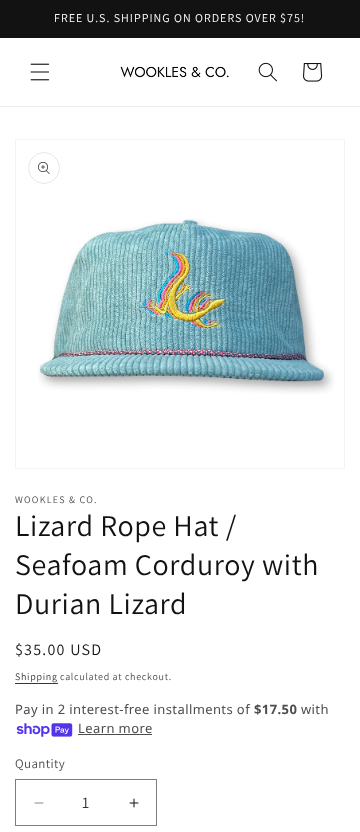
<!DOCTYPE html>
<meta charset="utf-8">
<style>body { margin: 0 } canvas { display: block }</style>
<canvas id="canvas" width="360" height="832"></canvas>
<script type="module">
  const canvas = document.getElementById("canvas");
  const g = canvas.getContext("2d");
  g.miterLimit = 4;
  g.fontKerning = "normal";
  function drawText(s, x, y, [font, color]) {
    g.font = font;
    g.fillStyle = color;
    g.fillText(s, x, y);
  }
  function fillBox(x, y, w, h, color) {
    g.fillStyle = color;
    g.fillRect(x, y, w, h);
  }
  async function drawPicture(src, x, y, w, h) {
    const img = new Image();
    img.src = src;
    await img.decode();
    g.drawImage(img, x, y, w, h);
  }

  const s1 = ["12px Assistant", "#FFFFFF"];
  const s2 = ["10px Assistant", "#4D4D4D"];
  const s3 = ["30px Assistant", "#121212"];
  const s4 = ["16px Assistant", "#121212"];
  const s5 = ["10px Assistant", "#363636"];
  const s6 = ["13px Noto Sans", "#4D4D4D"];
  const s7 = ["bold 13px Noto Sans", "#4D4D4D"];
  const s8 = ["13px Assistant", "#4D4D4D"];
  const s9 = ["16px Assistant", "#363636"];

  fillBox(0, 0, 360, 832, "#FFFFFF");
  fillBox(0, 0, 360, 38, "#121212");
  g.letterSpacing = "1px";
  drawText("FREE U.S. SHIPPING ON ORDERS OVER $75!", 54, 22, s1);
  fillBox(0, 106, 360, 1, "#ECECEC");
  await drawPicture("pic1.png", 30, 63, 20, 18);
  await drawPicture("pic2.png", 120, 66, 109, 12);
  await drawPicture("pic3.png", 258, 62, 19, 20);
  await drawPicture("pic4.png", 303, 63, 20, 19);
  g.strokeStyle = "#F3F3F3";
  g.strokeRect(15.5, 139.5, 329, 329);
  g.beginPath();
  g.arc(44, 168, 15.5, 0, Math.PI * 2);
  g.strokeStyle = "#E7E7E7";
  g.stroke();
  await drawPicture("pic5.png", 38, 162, 12, 12);
  await drawPicture("pic6.png", 38, 218, 296, 176);
  g.letterSpacing = "1.25px";
  drawText("WOOKLES & CO.", 15, 503, s2);
  g.letterSpacing = "0.6px";
  drawText("Lizard Rope Hat /", 15, 536, s3);
  drawText("Seafoam Corduroy with", 15, 575, s3);
  drawText("Durian Lizard", 15, 614, s3);
  g.letterSpacing = "1.25px";
  drawText("$35.00 USD", 15, 655, s4);
  g.letterSpacing = "0.7px";
  drawText("Shipping", 15, 680, s5);
  fillBox(15, 683, 43, 1, "#363636");
  drawText("calculated at checkout.", 60, 680, s2);
  g.letterSpacing = "0.4px";
  drawText("Pay in 2 interest-free installments of", 15, 714, s6);
  drawText("$17.50", 254, 714, s7);
  drawText("with", 301, 714, s6);
  await drawPicture("pic7.png", 16, 723, 57, 14);
  drawText("Learn more", 78, 733, s6);
  fillBox(78, 734, 74, 1, "#4D4D4D");
  drawText("Quantity", 15, 768, s8);
  await drawPicture("pic8.png", 34, 802, 10, 2);
  await drawPicture("pic9.png", 129, 798, 10, 10);
  g.strokeStyle = "#7D7D7D";
  g.strokeRect(15.5, 779.5, 141, 46);
  g.letterSpacing = "0px";
  drawText("1", 82, 808, s9);
</script>
